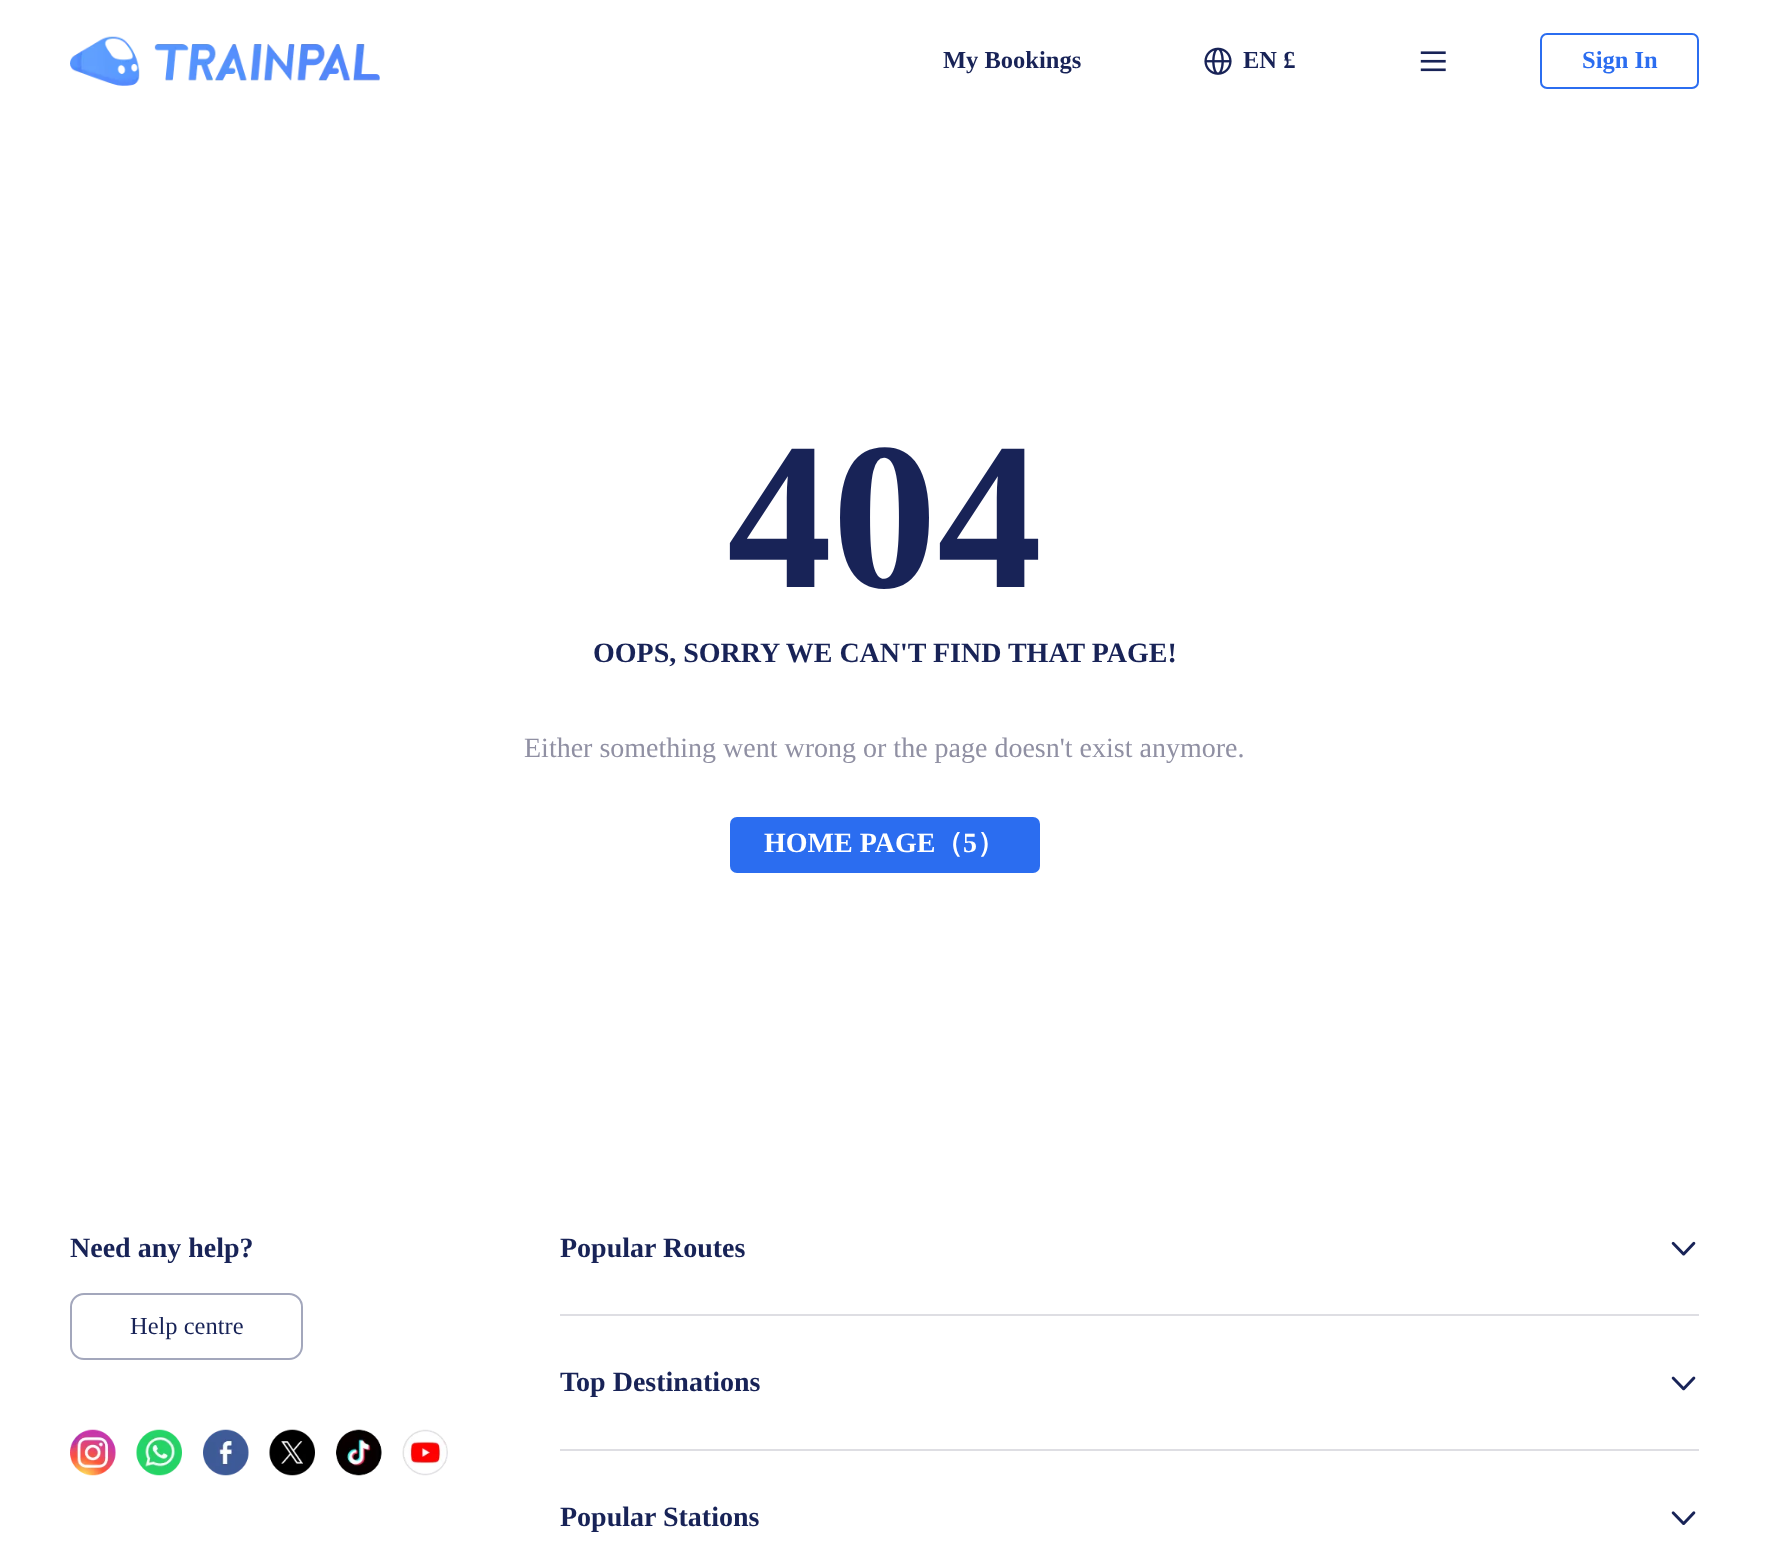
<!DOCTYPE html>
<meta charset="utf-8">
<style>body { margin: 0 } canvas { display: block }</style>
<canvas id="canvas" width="1768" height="1545"></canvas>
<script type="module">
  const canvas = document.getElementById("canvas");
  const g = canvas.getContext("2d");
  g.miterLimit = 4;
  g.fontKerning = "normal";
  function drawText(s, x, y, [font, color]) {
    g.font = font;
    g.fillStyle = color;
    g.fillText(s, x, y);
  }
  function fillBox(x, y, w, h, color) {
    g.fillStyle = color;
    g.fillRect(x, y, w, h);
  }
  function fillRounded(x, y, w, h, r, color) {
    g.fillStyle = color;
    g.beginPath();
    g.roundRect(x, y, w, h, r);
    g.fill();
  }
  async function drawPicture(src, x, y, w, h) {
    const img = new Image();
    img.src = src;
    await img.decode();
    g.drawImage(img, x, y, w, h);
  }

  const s1 = ["bold 24.5px Liberation Serif", "#182357"];
  const s2 = ["bold 24.5px Liberation Serif", "#2B6DF0"];
  const s3 = ["bold 210px Liberation Serif", "#182357"];
  const s4 = ["bold 28px Liberation Serif", "#182357"];
  const s5 = ["28px Liberation Serif", "#9090A3"];
  const s6 = ["bold 28px Liberation Serif", "#FFFFFF"];
  const s7 = ["bold 28px WenQuanYi Zen Hei", "#FFFFFF"];
  const s8 = ["24.5px Liberation Serif", "#182357"];

  fillBox(0, 0, 1768, 1545, "#FFFFFF");
  await drawPicture("pic1.png", 70, 36, 310, 50);
  drawText("My Bookings", 943, 68, s1);
  await drawPicture("pic2.png", 1204, 47, 28, 28);
  drawText("EN £", 1243, 68, s1);
  await drawPicture("pic3.png", 1420, 51, 26, 21);
  g.beginPath();
  g.roundRect(1541, 34, 157, 54, 6);
  g.strokeStyle = "#2B6DF0";
  g.lineWidth = 2;
  g.stroke();
  drawText("Sign In", 1582, 68, s2);
  drawText("404", 727, 587, s3);
  drawText("OOPS, SORRY WE CAN'T FIND THAT PAGE!", 593, 662, s4);
  drawText("Either something went wrong or the page doesn't exist anymore.", 524, 757, s5);
  fillRounded(730, 817, 310, 56, 7, "#2B6DF0");
  drawText("HOME PAGE", 764, 852, s6);
  drawText("（", 935, 852, s7);
  drawText("5", 963, 852, s6);
  drawText("）", 977, 852, s7);
  drawText("Need any help?", 70, 1257, s4);
  g.beginPath();
  g.roundRect(71, 1294, 231, 65, 13);
  g.strokeStyle = "#A3A7BC";
  g.stroke();
  drawText("Help centre", 130, 1334, s8);
  await drawPicture("pic4.png", 70, 1429, 46, 47);
  await drawPicture("pic5.png", 136, 1429, 46, 47);
  await drawPicture("pic6.png", 203, 1429, 46, 47);
  await drawPicture("pic7.png", 269, 1429, 46, 47);
  await drawPicture("pic8.png", 336, 1429, 46, 47);
  await drawPicture("pic9.png", 402, 1429, 46, 47);
  fillBox(560, 1314, 1139, 2, "#DEDEE3");
  drawText("Popular Routes", 560, 1257, s4);
  await drawPicture("pic10.png", 1671, 1241, 25, 15);
  fillBox(560, 1449, 1139, 2, "#DEDEE3");
  drawText("Top Destinations", 560, 1391, s4);
  await drawPicture("pic11.png", 1671, 1376, 25, 15);
  drawText("Popular Stations", 560, 1526, s4);
  await drawPicture("pic12.png", 1671, 1511, 25, 14);
</script>
